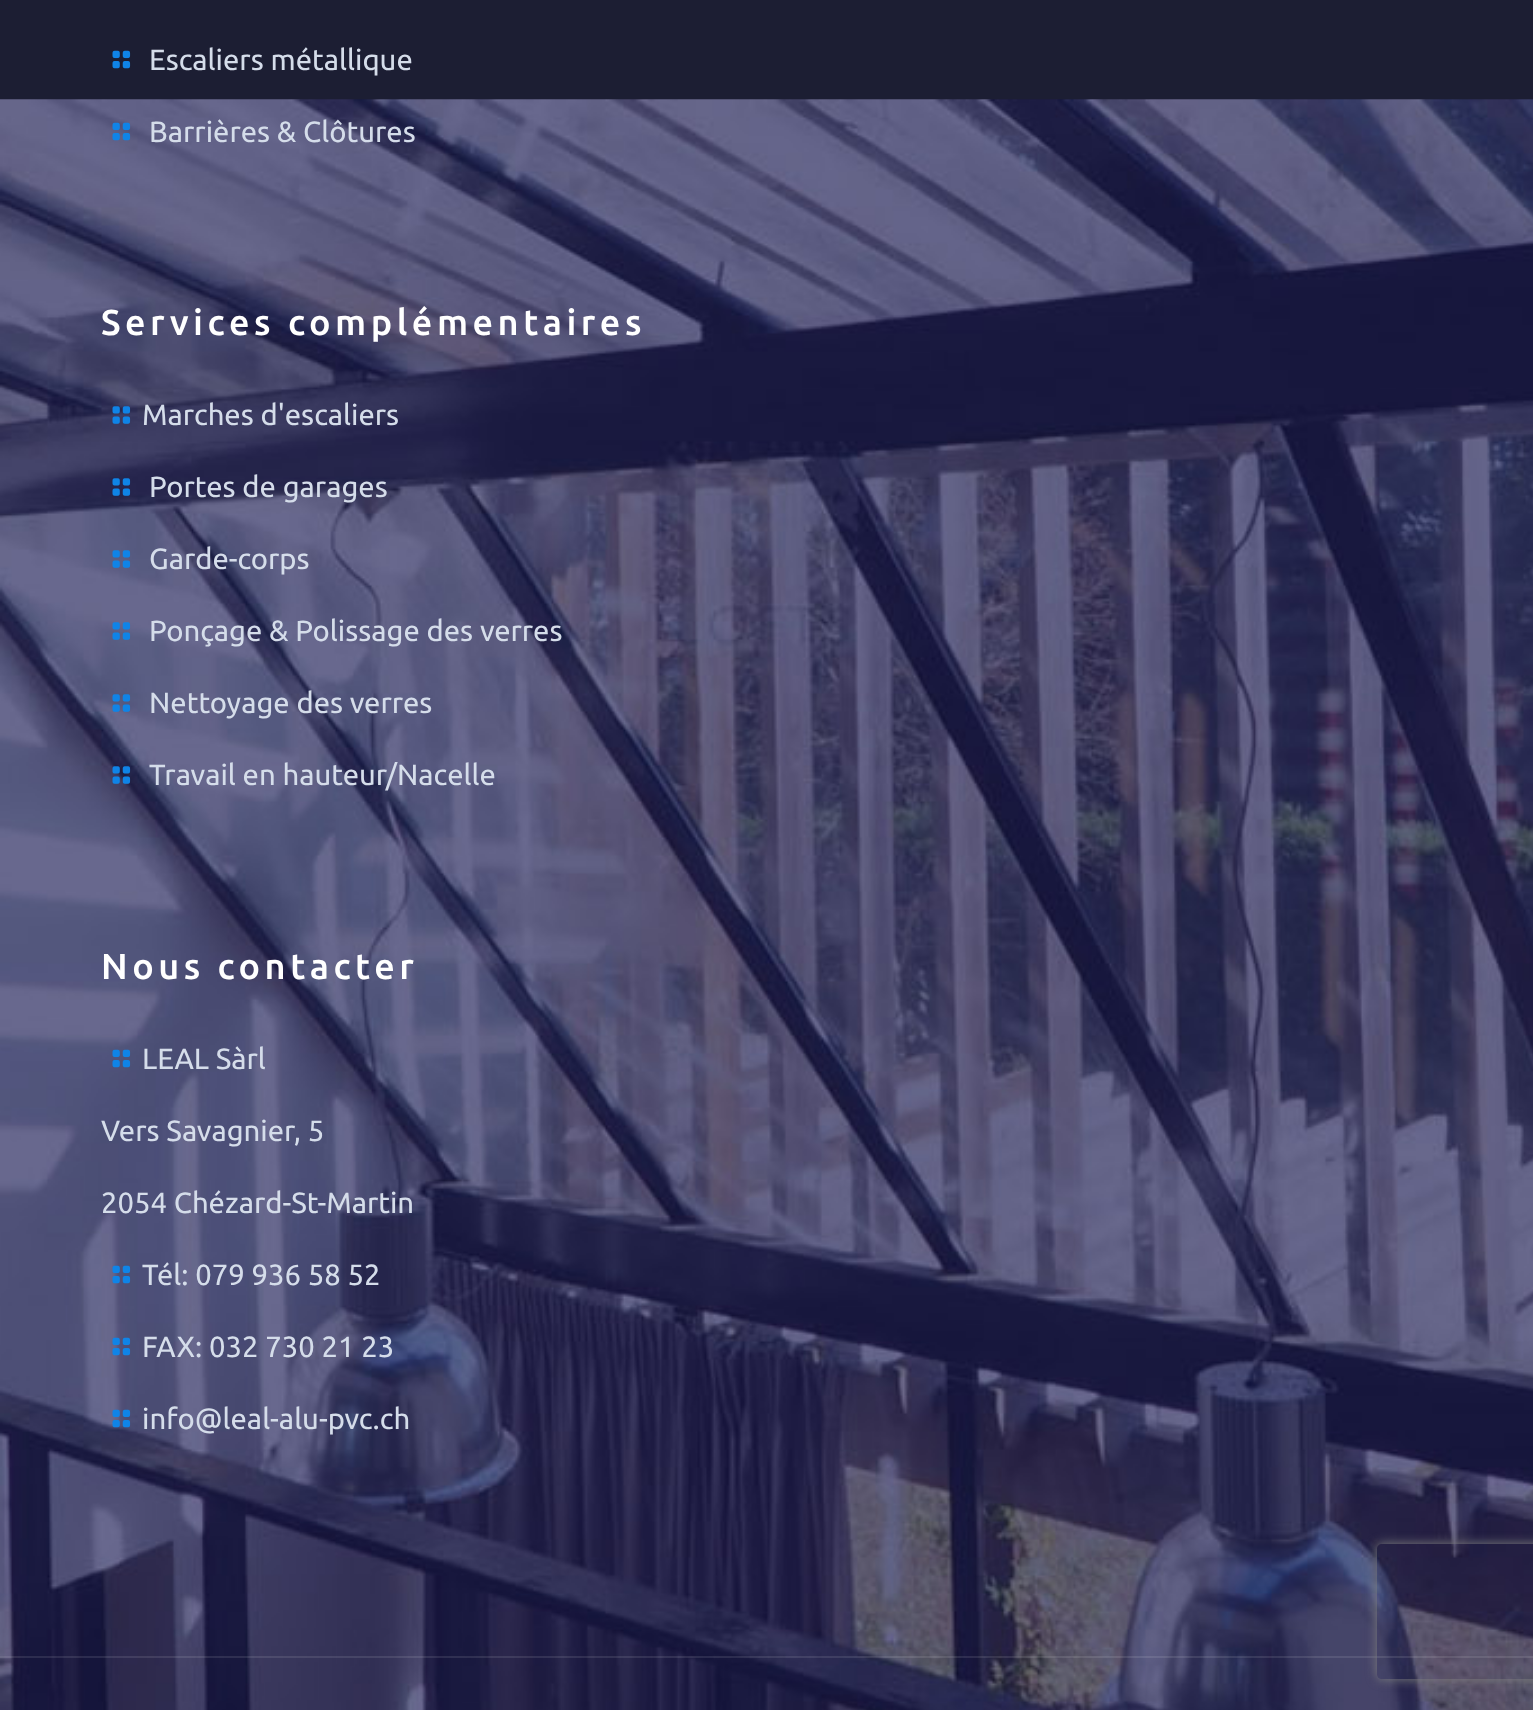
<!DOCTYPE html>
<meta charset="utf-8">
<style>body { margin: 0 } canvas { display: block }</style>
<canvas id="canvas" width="1533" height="1710"></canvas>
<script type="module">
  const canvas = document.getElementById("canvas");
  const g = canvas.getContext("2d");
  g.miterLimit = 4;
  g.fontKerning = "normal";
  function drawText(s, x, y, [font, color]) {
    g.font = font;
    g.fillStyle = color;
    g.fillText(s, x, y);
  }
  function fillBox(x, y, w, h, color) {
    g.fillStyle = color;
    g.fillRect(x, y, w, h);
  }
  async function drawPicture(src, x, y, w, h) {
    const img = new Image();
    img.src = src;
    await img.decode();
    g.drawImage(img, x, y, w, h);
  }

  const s1 = ["29.25px Ubuntu", "#D5DDEA"];
  const s2 = ["500 36px Ubuntu", "#FFFFFF"];

  fillBox(0, 0, 1533, 1710, "#1C1E33");
  await drawPicture("pic1.png", 0, 99, 1533, 1611);
  await drawPicture("pic2.png", 112, 50, 19, 19);
  drawText("Escaliers métallique", 149, 70, s1);
  await drawPicture("pic3.png", 112, 122, 19, 19);
  drawText("Barrières & Clôtures", 149, 142, s1);
  g.letterSpacing = "4.5px";
  drawText("Services complémentaires", 101, 335, s2);
  await drawPicture("pic4.png", 112, 406, 19, 18);
  g.letterSpacing = "0px";
  drawText("Marches d'escaliers", 142, 425, s1);
  await drawPicture("pic5.png", 112, 478, 19, 18);
  drawText("Portes de garages", 149, 497, s1);
  await drawPicture("pic6.png", 112, 550, 19, 18);
  drawText("Garde-corps", 149, 569, s1);
  await drawPicture("pic7.png", 112, 622, 19, 18);
  drawText("Ponçage & Polissage des verres", 149, 641, s1);
  await drawPicture("pic8.png", 112, 694, 19, 18);
  drawText("Nettoyage des verres", 149, 713, s1);
  await drawPicture("pic9.png", 112, 766, 19, 18);
  drawText("Travail en hauteur/Nacelle", 149, 785, s1);
  g.letterSpacing = "4.5px";
  drawText("Nous contacter", 101, 979, s2);
  await drawPicture("pic10.png", 112, 1049, 19, 19);
  g.letterSpacing = "0px";
  drawText("LEAL Sàrl", 142, 1069, s1);
  drawText("Vers Savagnier, 5", 101, 1141, s1);
  drawText("2054 Chézard-St-Martin", 101, 1213, s1);
  await drawPicture("pic11.png", 112, 1265, 19, 19);
  drawText("Tél: 079 936 58 52", 142, 1285, s1);
  await drawPicture("pic12.png", 112, 1337, 19, 19);
  drawText("FAX: 032 730 21 23", 142, 1357, s1);
  await drawPicture("pic13.png", 112, 1409, 19, 19);
  drawText("info@leal-alu-pvc.ch", 142, 1429, s1);
  fillBox(0, 1656, 1533, 2, "rgba(255, 255, 255, 0.1)");
  g.save();
  g.beginPath();
  g.moveTo(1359, 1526);
  g.lineTo(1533, 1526);
  g.lineTo(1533, 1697);
  g.lineTo(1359, 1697);
  g.closePath();
  g.moveTo(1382, 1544);
  g.lineTo(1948, 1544);
  g.bezierCurveTo(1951, 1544, 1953, 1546, 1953, 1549);
  g.lineTo(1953, 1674);
  g.bezierCurveTo(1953, 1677, 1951, 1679, 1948, 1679);
  g.lineTo(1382, 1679);
  g.bezierCurveTo(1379, 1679, 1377, 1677, 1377, 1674);
  g.lineTo(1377, 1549);
  g.bezierCurveTo(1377, 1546, 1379, 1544, 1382, 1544);
  g.closePath();
  g.clip("evenodd");
  g.fillStyle = "#808080";
  g.filter = "blur(5.5px)";
  g.beginPath();
  g.roundRect(1377, 1544, 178, 135, 5);
  g.fill();
  g.filter = "none";
  g.restore();
</script>
